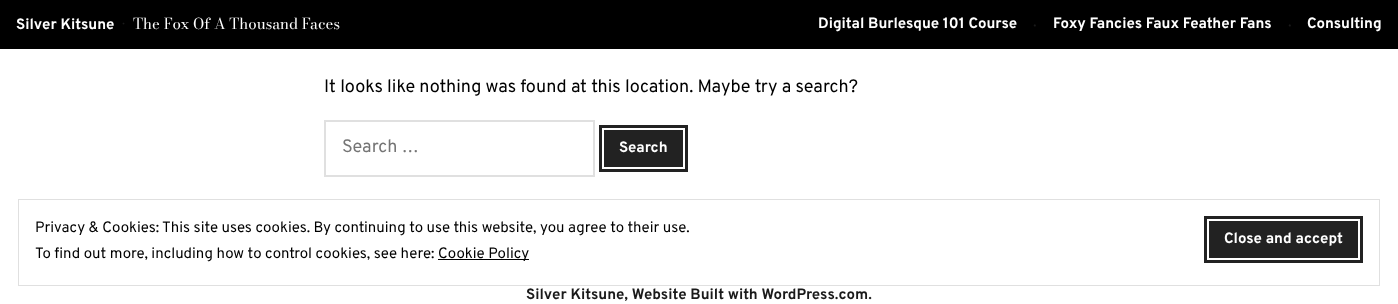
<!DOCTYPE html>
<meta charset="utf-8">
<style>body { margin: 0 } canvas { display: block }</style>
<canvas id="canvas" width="1398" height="304"></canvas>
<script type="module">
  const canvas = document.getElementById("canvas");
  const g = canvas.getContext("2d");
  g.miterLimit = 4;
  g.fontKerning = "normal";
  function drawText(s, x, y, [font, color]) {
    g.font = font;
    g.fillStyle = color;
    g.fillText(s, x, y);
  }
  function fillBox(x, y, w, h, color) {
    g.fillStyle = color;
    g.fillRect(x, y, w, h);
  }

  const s1 = ["bold 15px Overpass", "#FFFFFF"];
  const s2 = ["15px Bodoni Moda", "#1A1A1A"];
  const s3 = ["15px Bodoni Moda", "#FFFFFF"];
  const s4 = ["18px Bodoni Moda", "#1A1A1A"];
  const s5 = ["18px Overpass", "#000000"];
  const s6 = ["18px Overpass", "#757575"];
  const s7 = ["bold 15px Overpass", "#1A1A1A"];
  const s8 = ["15px Overpass", "#000000"];

  fillBox(0, 0, 1398, 304, "#FFFFFF");
  fillBox(0, 0, 1398, 49, "#000000");
  drawText("Silver Kitsune", 16, 29, s1);
  drawText("•", 122, 29, s2);
  drawText("The Fox Of A Thousand Faces", 133, 29, s3);
  drawText("Digital Burlesque 101 Course", 818, 28, s1);
  drawText("•", 1033, 32, s4);
  drawText("Foxy Fancies Faux Feather Fans", 1053, 28, s1);
  drawText("•", 1288, 32, s4);
  drawText("Consulting", 1307, 28, s1);
  drawText("It looks like nothing was found at this location. Maybe try a search?", 324, 92, s5);
  g.strokeStyle = "#E0E0E0";
  g.lineWidth = 2;
  g.strokeRect(325, 121, 269, 55);
  drawText("Search …", 342, 152, s6);
  fillBox(599, 125, 89, 47, "#222222");
  g.strokeStyle = "#FFFFFF";
  g.strokeRect(603, 129, 81, 39);
  drawText("Search", 619, 152, s1);
  drawText("Silver Kitsune, Website Built with WordPress.com.", 526, 299, s7);
  g.strokeStyle = "#E0E0E0";
  g.lineWidth = 1;
  g.strokeRect(18.5, 199.5, 1361, 86);
  drawText("Privacy & Cookies: This site uses cookies. By continuing to use this website, you agree to their use.", 35, 232, s8);
  fillBox(1204, 216, 159, 47, "#222222");
  g.strokeStyle = "#FFFFFF";
  g.lineWidth = 2;
  g.strokeRect(1208, 220, 151, 39);
  drawText("Close and accept", 1224, 243, s1);
  drawText("To find out more, including how to control cookies, see here:", 35, 258, s8);
  fillBox(438, 259, 91, 1, "#000000");
  drawText("Cookie Policy", 438, 258, s8);
</script>
